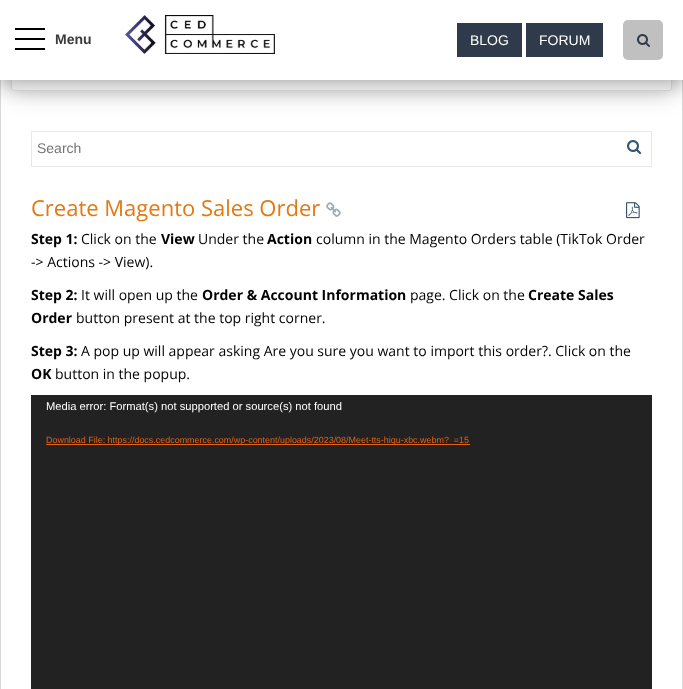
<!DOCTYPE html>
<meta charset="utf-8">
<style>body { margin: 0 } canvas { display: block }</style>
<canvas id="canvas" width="683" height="689"></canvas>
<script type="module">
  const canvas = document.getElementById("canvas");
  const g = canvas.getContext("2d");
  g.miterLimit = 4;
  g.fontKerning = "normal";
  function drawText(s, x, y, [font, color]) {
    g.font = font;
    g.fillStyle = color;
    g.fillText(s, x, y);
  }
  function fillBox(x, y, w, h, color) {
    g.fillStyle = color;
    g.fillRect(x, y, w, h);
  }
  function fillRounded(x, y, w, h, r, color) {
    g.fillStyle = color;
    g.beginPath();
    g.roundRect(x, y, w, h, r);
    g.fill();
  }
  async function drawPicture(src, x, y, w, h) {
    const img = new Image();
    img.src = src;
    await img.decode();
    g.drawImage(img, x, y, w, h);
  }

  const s1 = ["bold 14px Liberation Sans", "#3C3A3A"];
  const s2 = ["14px Liberation Sans", "#FFFFFF"];
  const s3 = ["14px Liberation Sans", "#757575"];
  const s4 = ["22px Open Sans", "#E47911"];
  const s5 = ["bold 14px Open Sans", "#020202"];
  const s6 = ["14px Open Sans", "#020202"];
  const s7 = ["11.2px Liberation Sans", "#FFFFFF"];
  const s8 = ["8.95px Liberation Sans", "#E46116"];

  fillBox(0, 0, 683, 689, "#FFFFFF");
  fillBox(682, 80, 1, 609, "#DADADA");
  fillBox(0, 80, 1, 609, "#DADADA");
  g.fillStyle = "rgba(0, 0, 0, 0.23)";
  g.filter = "blur(11.5px)";
  g.beginPath();
  g.roundRect(10, -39, 663, 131, 4);
  g.fill();
  g.filter = "none";
  g.fillStyle = "#F7F7F7";
  g.beginPath();
  g.roundRect(11.5, -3.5, 660, 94, 2.5);
  g.fill();
  g.strokeStyle = "#DDDDDD";
  g.stroke();
  g.fillStyle = "rgba(0, 0, 0, 0.39)";
  g.filter = "blur(10.5px)";
  g.beginPath();
  g.rect(-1, -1, 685, 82);
  g.fill();
  g.filter = "none";
  fillBox(0, 0, 683, 80, "#FFFFFF");
  fillBox(15, 28, 30, 2, "#000000");
  fillBox(15, 38, 30, 2, "#000000");
  drawText("Menu", 55, 44, s1);
  fillBox(15, 48, 30, 2, "#000000");
  await drawPicture("pic1.png", 125, 15, 150, 39);
  fillBox(457, 23, 65, 34, "#2F3B4A");
  drawText("BLOG", 470, 45, s2);
  fillBox(526, 23, 77, 34, "#2F3B4A");
  drawText("FORUM", 539, 45, s2);
  fillRounded(623, 20, 40, 40, 5, "#C0C0C0");
  await drawPicture("pic2.png", 637, 34, 13, 13);
  g.strokeStyle = "#E8E8E8";
  g.strokeRect(31.5, 131.5, 620, 35);
  drawText("Search", 37, 153, s3);
  await drawPicture("pic3.png", 627, 140, 15, 15);
  drawText("Create Magento Sales Order", 31, 216, s4);
  await drawPicture("pic4.png", 326, 202, 15, 15);
  await drawPicture("pic5.png", 626, 202, 14, 17);
  drawText("Step 1:", 31, 244, s5);
  drawText("Click on the", 81, 244, s6);
  drawText("View", 161, 244, s5);
  drawText("Under the", 198, 244, s6);
  drawText("Action", 267, 244, s5);
  drawText("column in the Magento Orders table (TikTok Order", 316, 244, s6);
  drawText("-> Actions -> View).", 31, 267, s6);
  drawText("Step 2:", 31, 300, s5);
  drawText("It will open up the", 81, 300, s6);
  drawText("Order & Account Information", 202, 300, s5);
  drawText("page. Click on the", 410, 300, s6);
  drawText("Create Sales", 528, 300, s5);
  drawText("Order", 31, 323, s5);
  drawText("button present at the top right corner.", 76, 323, s6);
  drawText("Step 3:", 31, 356, s5);
  drawText("A pop up will appear asking Are you sure you want to import this order?. Click on the", 81, 356, s6);
  drawText("OK", 31, 379, s5);
  drawText("button in the popup.", 55, 379, s6);
  fillBox(31, 395, 621, 294, "#222222");
  drawText("Media error: Format(s) not supported or source(s) not found", 46, 410, s7);
  fillBox(46, 444, 424, 1, "#E46116");
  drawText("Download File: https://docs.cedcommerce.com/wp-content/uploads/2023/08/Meet-tts-hiqu-xbc.webm?_=15", 46, 443, s8);
</script>
